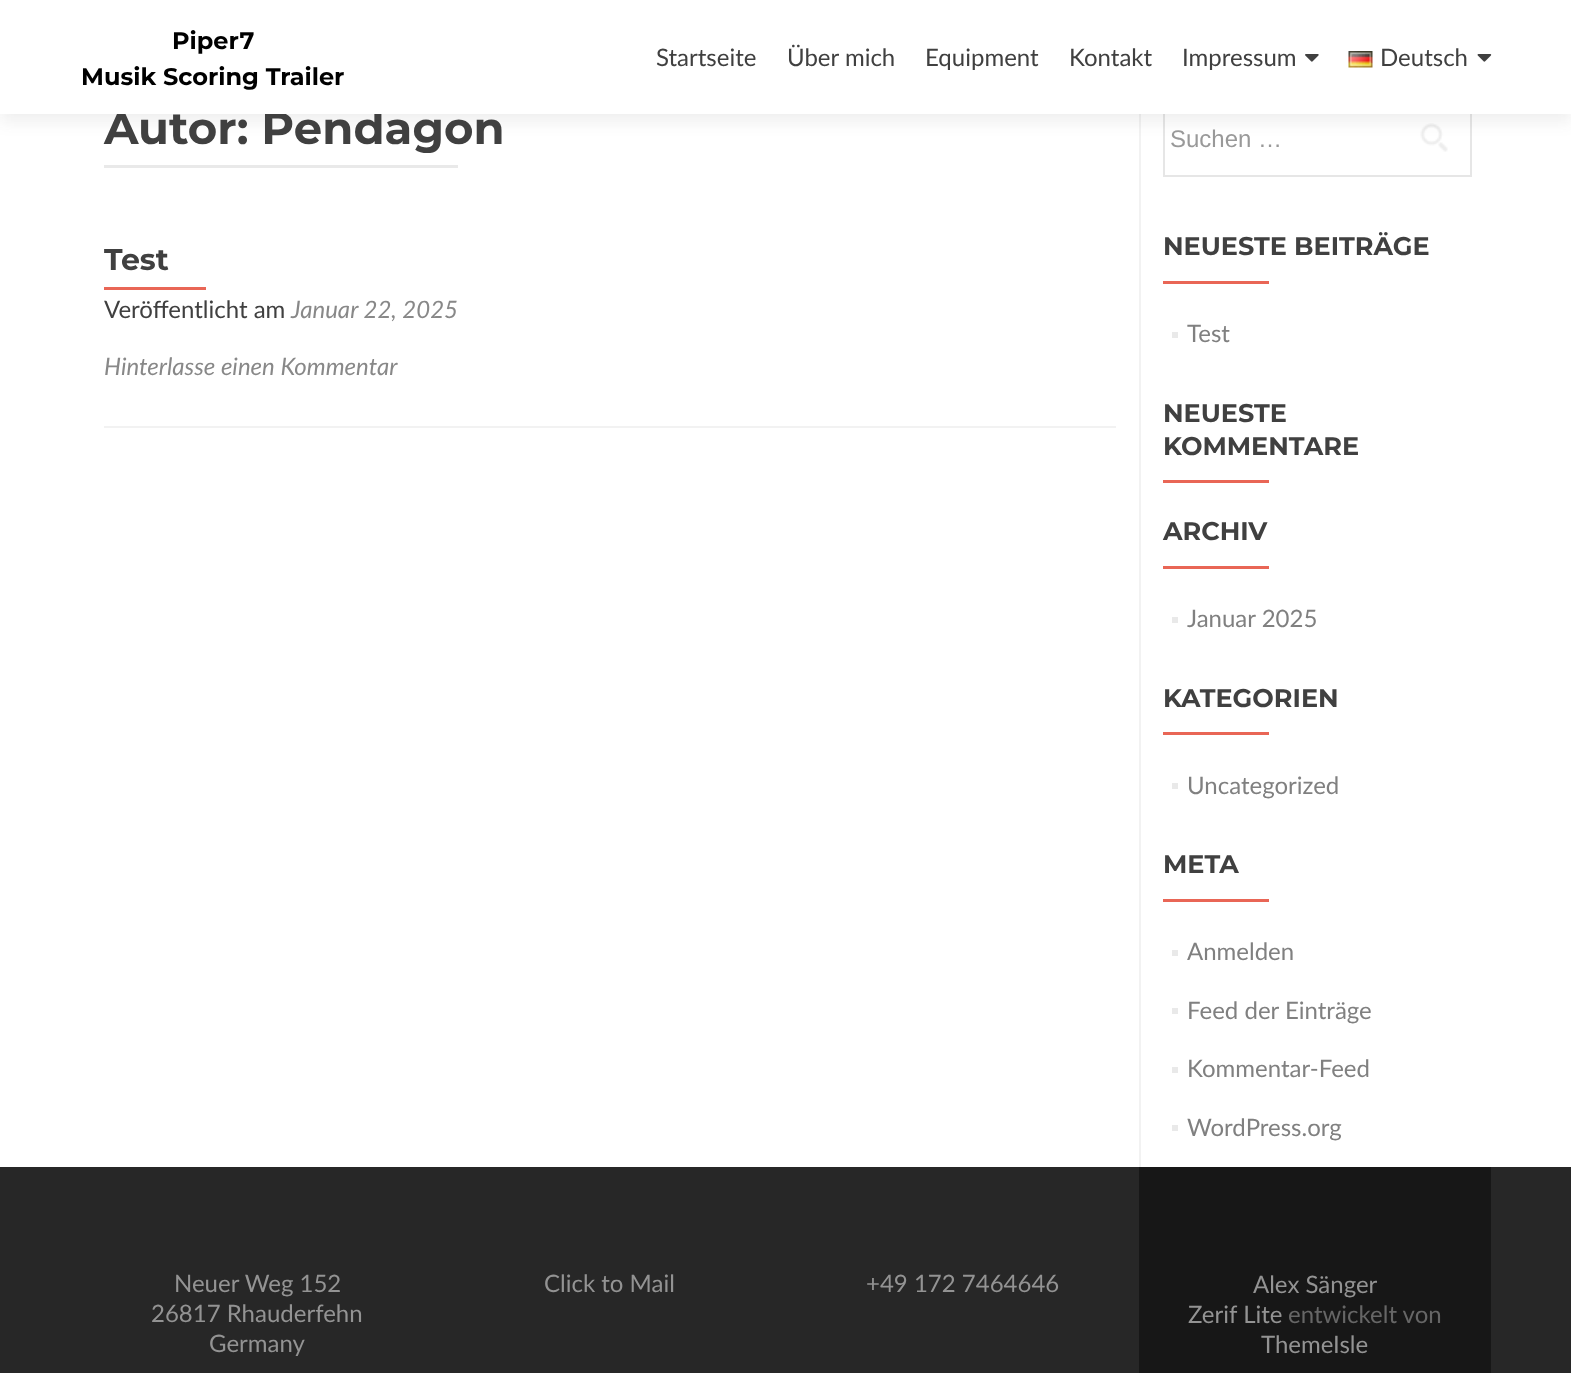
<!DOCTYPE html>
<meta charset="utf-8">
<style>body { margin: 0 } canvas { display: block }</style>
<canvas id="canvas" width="1571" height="1373"></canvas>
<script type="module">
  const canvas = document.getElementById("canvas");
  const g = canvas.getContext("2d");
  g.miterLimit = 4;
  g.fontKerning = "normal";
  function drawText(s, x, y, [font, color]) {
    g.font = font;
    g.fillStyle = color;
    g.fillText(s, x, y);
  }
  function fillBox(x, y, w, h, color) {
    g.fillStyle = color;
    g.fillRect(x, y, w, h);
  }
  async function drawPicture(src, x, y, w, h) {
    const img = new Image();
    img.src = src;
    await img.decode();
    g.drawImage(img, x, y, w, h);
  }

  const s1 = ["bold 45px Montserrat", "#404040"];
  const s2 = ["bold 24px Montserrat", "#000000"];
  const s3 = ["24px Lato", "#404040"];
  const s4 = ["bold 30px Montserrat", "#404040"];
  const s5 = ["italic 24px Lato", "#888888"];
  const s6 = ["24px Liberation Sans", "#999999"];
  const s7 = ["bold 25.5px Montserrat", "#404040"];
  const s8 = ["24px Lato", "#808080"];
  const s9 = ["24px Lato", "#939393"];
  const s10 = ["24px Lato", "#666666"];

  fillBox(0, 0, 1571, 1373, "#FFFFFF");
  fillBox(1139, 114, 2, 1053, "#F2F2F2");
  g.strokeStyle = "#E6E6E6";
  g.lineWidth = 2;
  g.strokeRect(1164, 103, 307, 73);
  await drawPicture("pic4.png", 1420, 123, 28, 29);
  g.fillStyle = "rgba(50, 50, 50, 0.08)";
  g.filter = "blur(8px)";
  g.beginPath();
  g.rect(0, 8, 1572, 114);
  g.fill();
  g.filter = "none";
  drawText("Autor: Pendagon", 104, 144, s1);
  fillBox(0, 0, 1571, 114, "#FFFFFF");
  drawText("Piper7", 172, 49, s2);
  drawText("Musik Scoring Trailer", 81, 85, s2);
  drawText("Startseite", 656, 66, s3);
  drawText("Über mich", 787, 66, s3);
  drawText("Equipment", 925, 66, s3);
  drawText("Kontakt", 1069, 66, s3);
  drawText("Impressum", 1182, 66, s3);
  await drawPicture("pic1.png", 1305, 54, 14, 8);
  await drawPicture("pic2.png", 1348, 51, 25, 17);
  drawText("Deutsch", 1380, 66, s3);
  await drawPicture("pic3.png", 1477, 54, 15, 8);
  fillBox(104, 165, 354, 3, "#E9E9E9");
  fillBox(104, 426, 1012, 2, "#F2F2F2");
  g.save();
  g.beginPath();
  g.rect(104, 243, 1012, 84);
  g.clip();
  drawText("Test", 104, 270, s4);
  g.restore();
  fillBox(104, 287, 102, 3, "#E96656");
  drawText("Veröffentlicht am", 104, 318, s3);
  drawText("Januar 22, 2025", 291, 318, s5);
  drawText("Hinterlasse einen Kommentar", 104, 375, s5);
  drawText("Suchen …", 1170, 147, s6);
  drawText("NEUESTE BEITRÄGE", 1163, 255, s7);
  fillBox(1163, 281, 106, 3, "#E96656");
  fillBox(1172, 332, 6, 6, "#E9E9E9");
  drawText("Test", 1187, 342, s8);
  drawText("NEUESTE", 1163, 422, s7);
  drawText("KOMMENTARE", 1163, 455, s7);
  fillBox(1163, 480, 106, 3, "#E96656");
  drawText("ARCHIV", 1163, 540, s7);
  fillBox(1163, 566, 106, 3, "#E96656");
  fillBox(1172, 617, 6, 6, "#E9E9E9");
  drawText("Januar 2025", 1187, 627, s8);
  drawText("KATEGORIEN", 1163, 707, s7);
  fillBox(1163, 732, 106, 3, "#E96656");
  fillBox(1172, 783, 6, 6, "#E9E9E9");
  drawText("Uncategorized", 1187, 794, s8);
  drawText("META", 1163, 873, s7);
  fillBox(1163, 899, 106, 3, "#E96656");
  fillBox(1172, 950, 6, 6, "#E9E9E9");
  drawText("Anmelden", 1187, 960, s8);
  fillBox(1172, 1008, 6, 6, "#E9E9E9");
  drawText("Feed der Einträge", 1187, 1019, s8);
  fillBox(1172, 1067, 6, 6, "#E9E9E9");
  drawText("Kommentar-Feed", 1187, 1077, s8);
  fillBox(1172, 1125, 6, 6, "#E9E9E9");
  drawText("WordPress.org", 1187, 1136, s8);
  fillBox(0, 1167, 1571, 206, "#272727");
  drawText("Neuer Weg 152", 174, 1292, s9);
  drawText("26817 Rhauderfehn", 151, 1322, s9);
  drawText("Germany", 209, 1352, s9);
  drawText("Click to Mail", 544, 1292, s9);
  drawText("+49 172 7464646", 866, 1292, s9);
  fillBox(1139, 1167, 352, 206, "#171717");
  drawText("Alex Sänger", 1253, 1293, s9);
  drawText("Zerif Lite", 1188, 1323, s9);
  drawText("entwickelt von", 1288, 1323, s10);
  drawText("ThemeIsle", 1261, 1353, s9);
</script>
